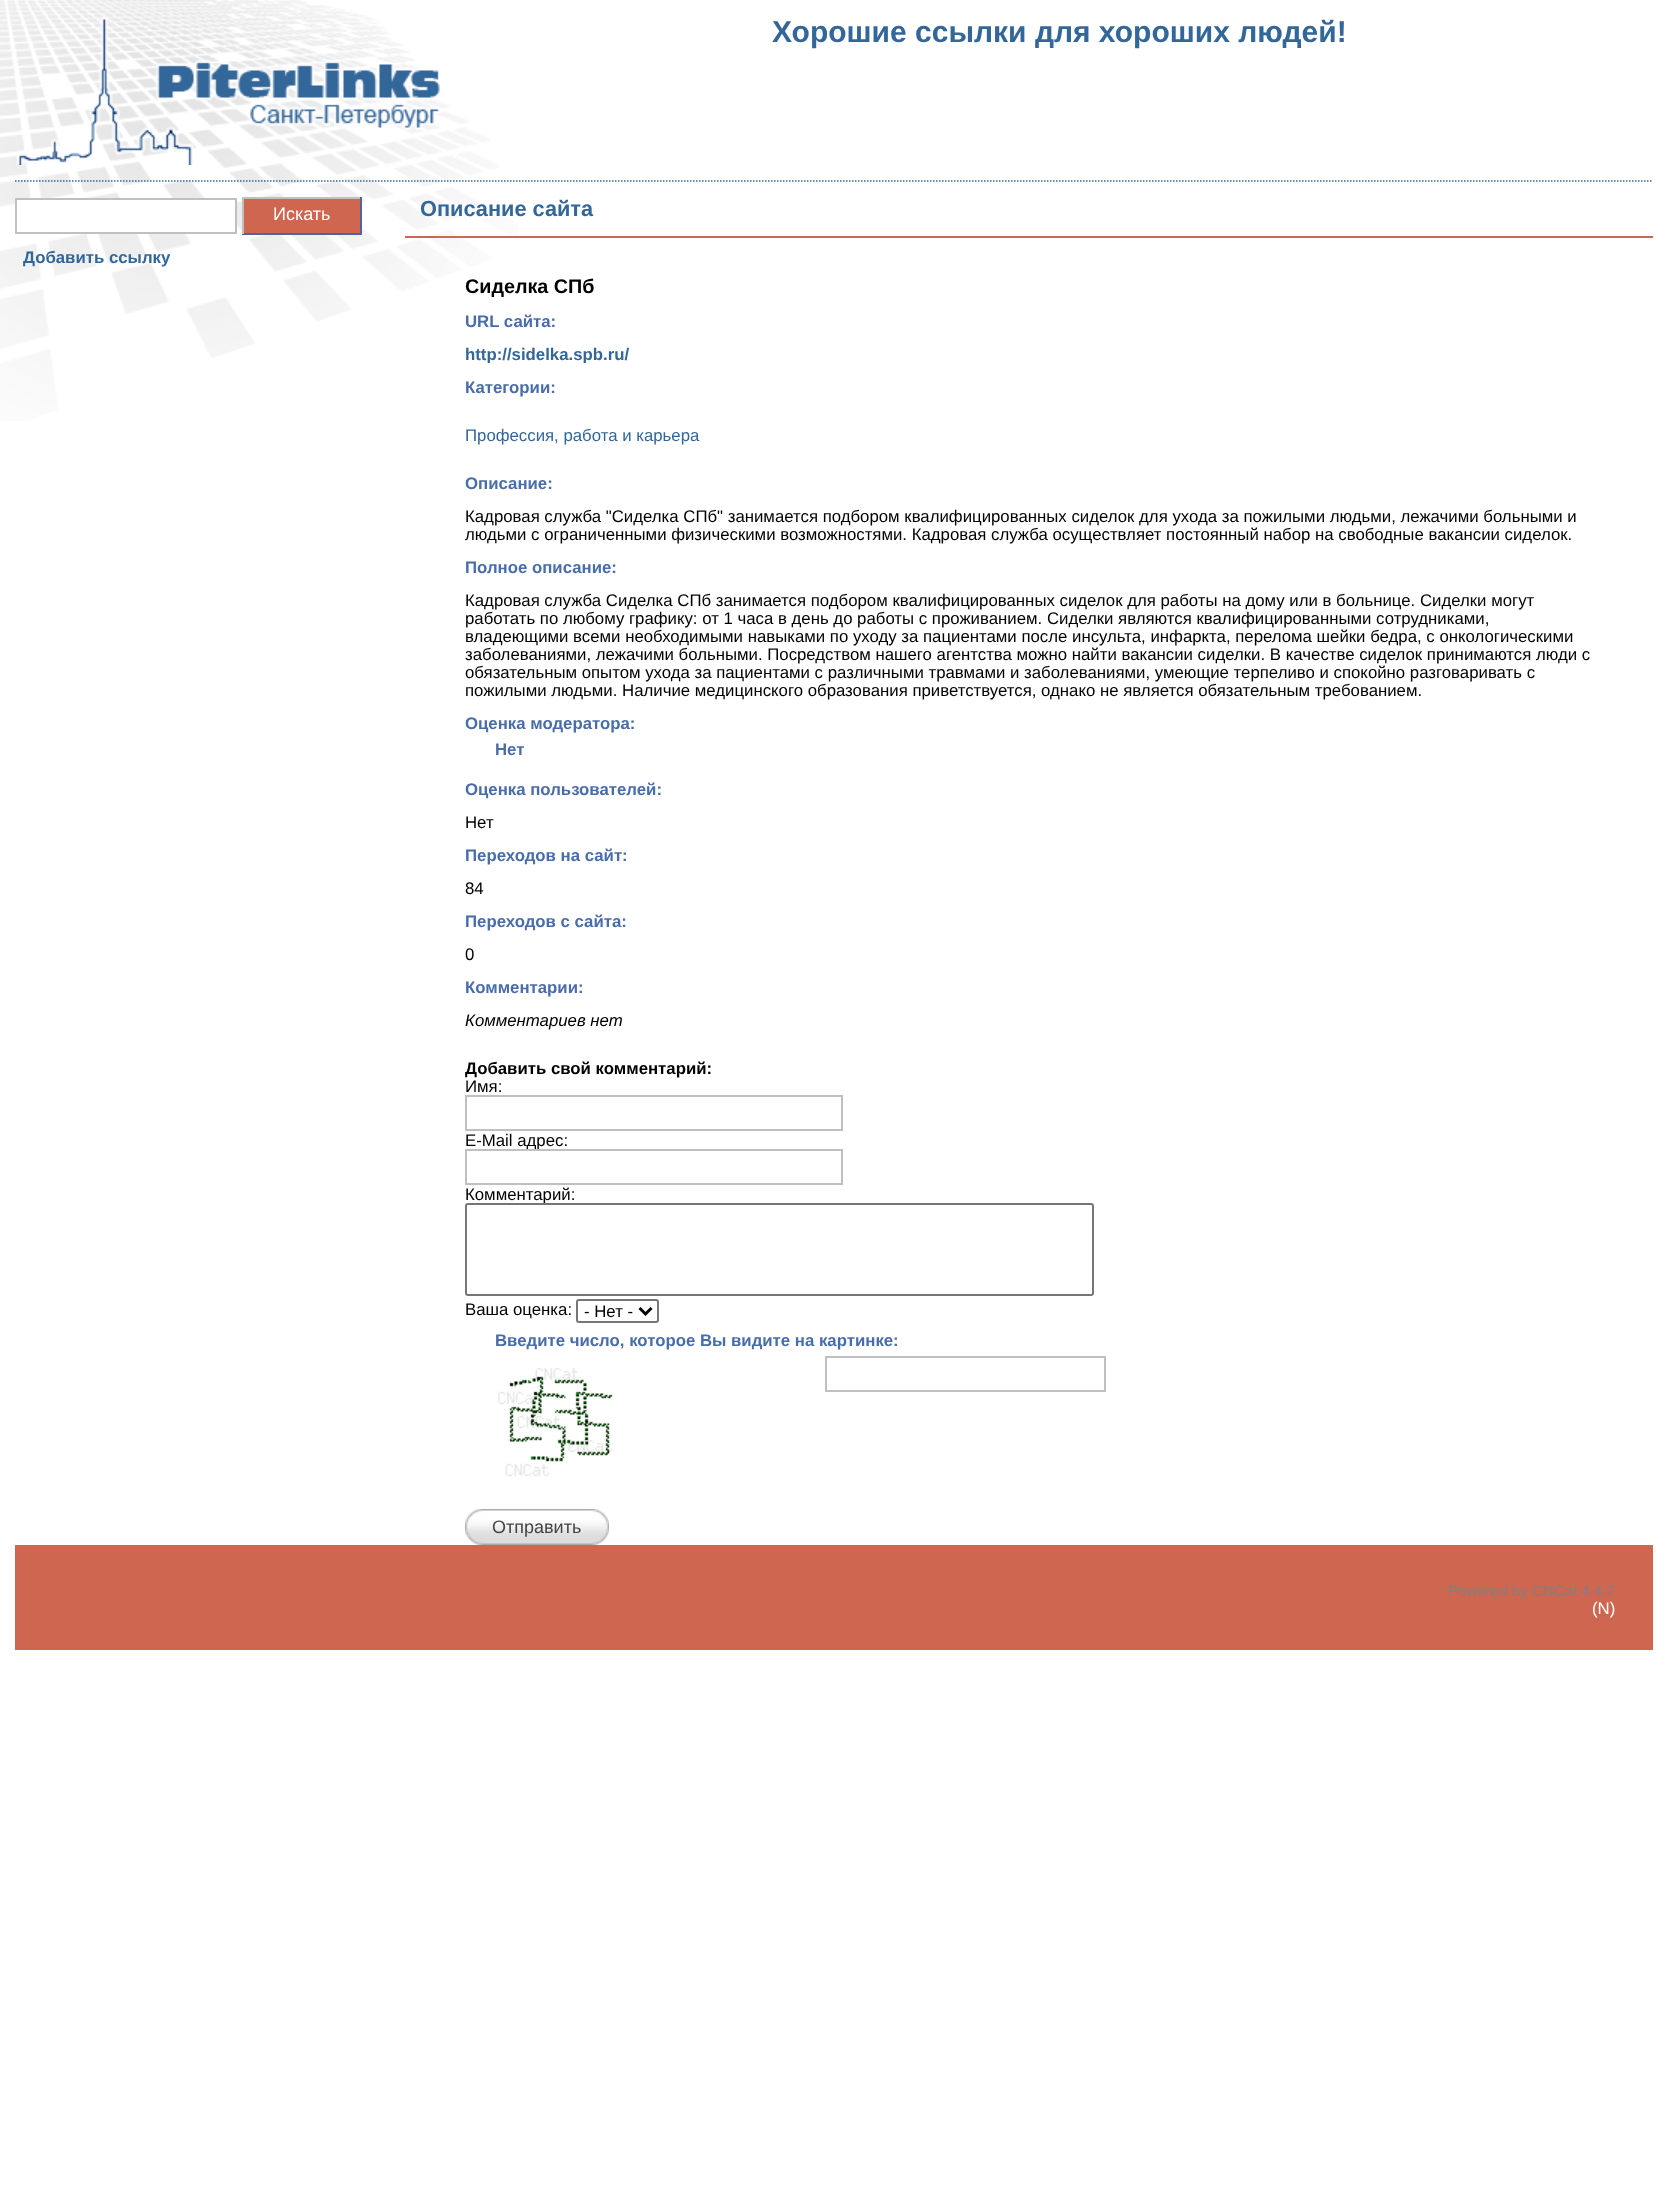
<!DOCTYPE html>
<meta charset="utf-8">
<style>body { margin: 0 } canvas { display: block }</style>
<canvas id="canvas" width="1668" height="2189"></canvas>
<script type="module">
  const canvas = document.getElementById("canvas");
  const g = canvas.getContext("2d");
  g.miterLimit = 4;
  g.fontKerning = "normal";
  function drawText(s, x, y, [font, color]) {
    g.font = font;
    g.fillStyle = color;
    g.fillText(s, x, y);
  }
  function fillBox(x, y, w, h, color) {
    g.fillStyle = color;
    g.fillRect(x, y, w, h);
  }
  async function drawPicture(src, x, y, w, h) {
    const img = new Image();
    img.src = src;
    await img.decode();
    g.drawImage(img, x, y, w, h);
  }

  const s1 = ["bold 30px Liberation Sans", "#336699"];
  const s2 = ["18px Liberation Sans", "#FFFFFF"];
  const s3 = ["bold 16.8px Liberation Sans", "#336699"];
  const s4 = ["bold 21.75px Liberation Sans", "#336699"];
  const s5 = ["bold 19.75px Liberation Sans", "#000000"];
  const s6 = ["bold 16.8px Liberation Sans", "#496DAB"];
  const s7 = ["16.8px Liberation Sans", "#336699"];
  const s8 = ["16.8px Liberation Sans", "#000000"];
  const s9 = ["italic 16.8px Liberation Sans", "#000000"];
  const s10 = ["bold 16.8px Liberation Sans", "#000000"];
  const s11 = ["18px Liberation Sans", "#444444"];
  const s12 = ["15.1px Liberation Sans", "#808080"];
  const s13 = ["16.8px Liberation Sans", "#FFFFFF"];

  fillBox(0, 0, 1668, 2189, "#FFFFFF");
  await drawPicture("pic1.png", 0, 0, 518, 421);
  g.beginPath();
  g.moveTo(15, 181);
  g.lineTo(1653, 181);
  g.strokeStyle = "#336699";
  g.lineWidth = 1.5;
  g.setLineDash([1.5, 1.5]);
  g.stroke();
  await drawPicture("pic2.png", 16, 17, 425, 148);
  drawText("Хорошие ссылки для хороших людей!", 772, 42, s1);
  g.fillStyle = "#FFFFFF";
  g.beginPath();
  g.rect(16, 199, 220, 34);
  g.fill();
  g.strokeStyle = "#C0C0C0";
  g.lineWidth = 2;
  g.setLineDash([]);
  g.stroke();
  fillBox(244, 199, 116, 34, "#CF6650");
  fillBox(242, 197, 120, 2, "#C0C0C0");
  fillBox(360, 197, 2, 37, "#4F64A0");
  fillBox(242, 233, 120, 2, "#4F64A0");
  fillBox(242, 197, 2, 37, "#C0C0C0");
  drawText("Искать", 273, 220, s2);
  drawText("Добавить ссылку", 23, 263, s3);
  fillBox(405, 236, 1248, 2, "#CF6650");
  drawText("Описание сайта", 420, 216, s4);
  drawText("Сиделка СПб", 465, 293, s5);
  drawText("URL сайта:", 465, 327, s6);
  g.save();
  g.beginPath();
  g.rect(465, 345, 1128, 18);
  g.clip();
  drawText("http://sidelka.spb.ru/", 465, 360, s3);
  g.restore();
  drawText("Категории:", 465, 393, s6);
  drawText("Профессия, работа и карьера", 465, 441, s7);
  drawText("Описание:", 465, 489, s6);
  drawText("Кадровая служба \"Сиделка СПб\" занимается подбором квалифицированных сиделок для ухода за пожилыми людьми, лежачими больными и", 465, 522, s8);
  drawText("людьми с ограниченными физическими возможностями. Кадровая служба осуществляет постоянный набор на свободные вакансии сиделок.", 465, 540, s8);
  drawText("Полное описание:", 465, 573, s6);
  drawText("Кадровая служба Сиделка СПб занимается подбором квалифицированных сиделок для работы на дому или в больнице. Сиделки могут", 465, 606, s8);
  drawText("работать по любому графику: от 1 часа в день до работы с проживанием. Сиделки являются квалифицированными сотрудниками,", 465, 624, s8);
  drawText("владеющими всеми необходимыми навыками по уходу за пациентами после инсульта, инфаркта, перелома шейки бедра, с онкологическими", 465, 642, s8);
  drawText("заболеваниями, лежачими больными. Посредством нашего агентства можно найти вакансии сиделки. В качестве сиделок принимаются люди с", 465, 660, s8);
  drawText("обязательным опытом ухода за пациентами с различными травмами и заболеваниями, умеющие терпеливо и спокойно разговаривать с", 465, 678, s8);
  drawText("пожилыми людьми. Наличие медицинского образования приветствуется, однако не является обязательным требованием.", 465, 696, s8);
  drawText("Оценка модератора:", 465, 729, s6);
  drawText("Нет", 495, 755, s6);
  drawText("Оценка пользователей:", 465, 795, s6);
  drawText("Нет", 465, 828, s8);
  drawText("Переходов на сайт:", 465, 861, s6);
  drawText("84", 465, 894, s8);
  drawText("Переходов с сайта:", 465, 927, s6);
  drawText("0", 465, 960, s8);
  drawText("Комментарии:", 465, 993, s6);
  drawText("Комментариев нет", 465, 1026, s9);
  drawText("Добавить свой комментарий:", 465, 1074, s10);
  drawText("Имя:", 465, 1092, s8);
  g.strokeRect(466, 1096, 376, 34);
  drawText("E-Mail адрес:", 465, 1146, s8);
  g.strokeRect(466, 1150, 376, 34);
  drawText("Комментарий:", 465, 1200, s8);
  g.fillStyle = "#FFFFFF";
  g.beginPath();
  g.roundRect(466, 1204, 627, 91, 2);
  g.fill();
  g.strokeStyle = "#767676";
  g.stroke();
  drawText("Ваша оценка:", 465, 1315, s8);
  g.beginPath();
  g.roundRect(577, 1300, 81, 22, 2);
  g.stroke();
  g.beginPath();
  g.moveTo(639.5, 1308);
  g.lineTo(645.5, 1314);
  g.lineTo(651.5, 1308);
  g.strokeStyle = "#000000";
  g.lineWidth = 3;
  g.stroke();
  drawText("- Нет -", 584, 1317, s8);
  drawText("Введите число, которое Вы видите на картинке:", 495, 1346, s6);
  await drawPicture("pic3.png", 498, 1368, 115, 109);
  g.strokeStyle = "#C0C0C0";
  g.lineWidth = 2;
  g.strokeRect(826, 1357, 279, 34);
  await drawPicture("pic4.png", 582, 1509, 27, 36);
  await drawPicture("pic5.png", 465, 1509, 117, 36);
  drawText("Отправить", 492, 1533, s11);
  fillBox(15, 1545, 1638, 105, "#CF6650");
  drawText("Powered by CNCat 4.4.2", 1448, 1596, s12);
  drawText("(N)", 1592, 1614, s13);
</script>
